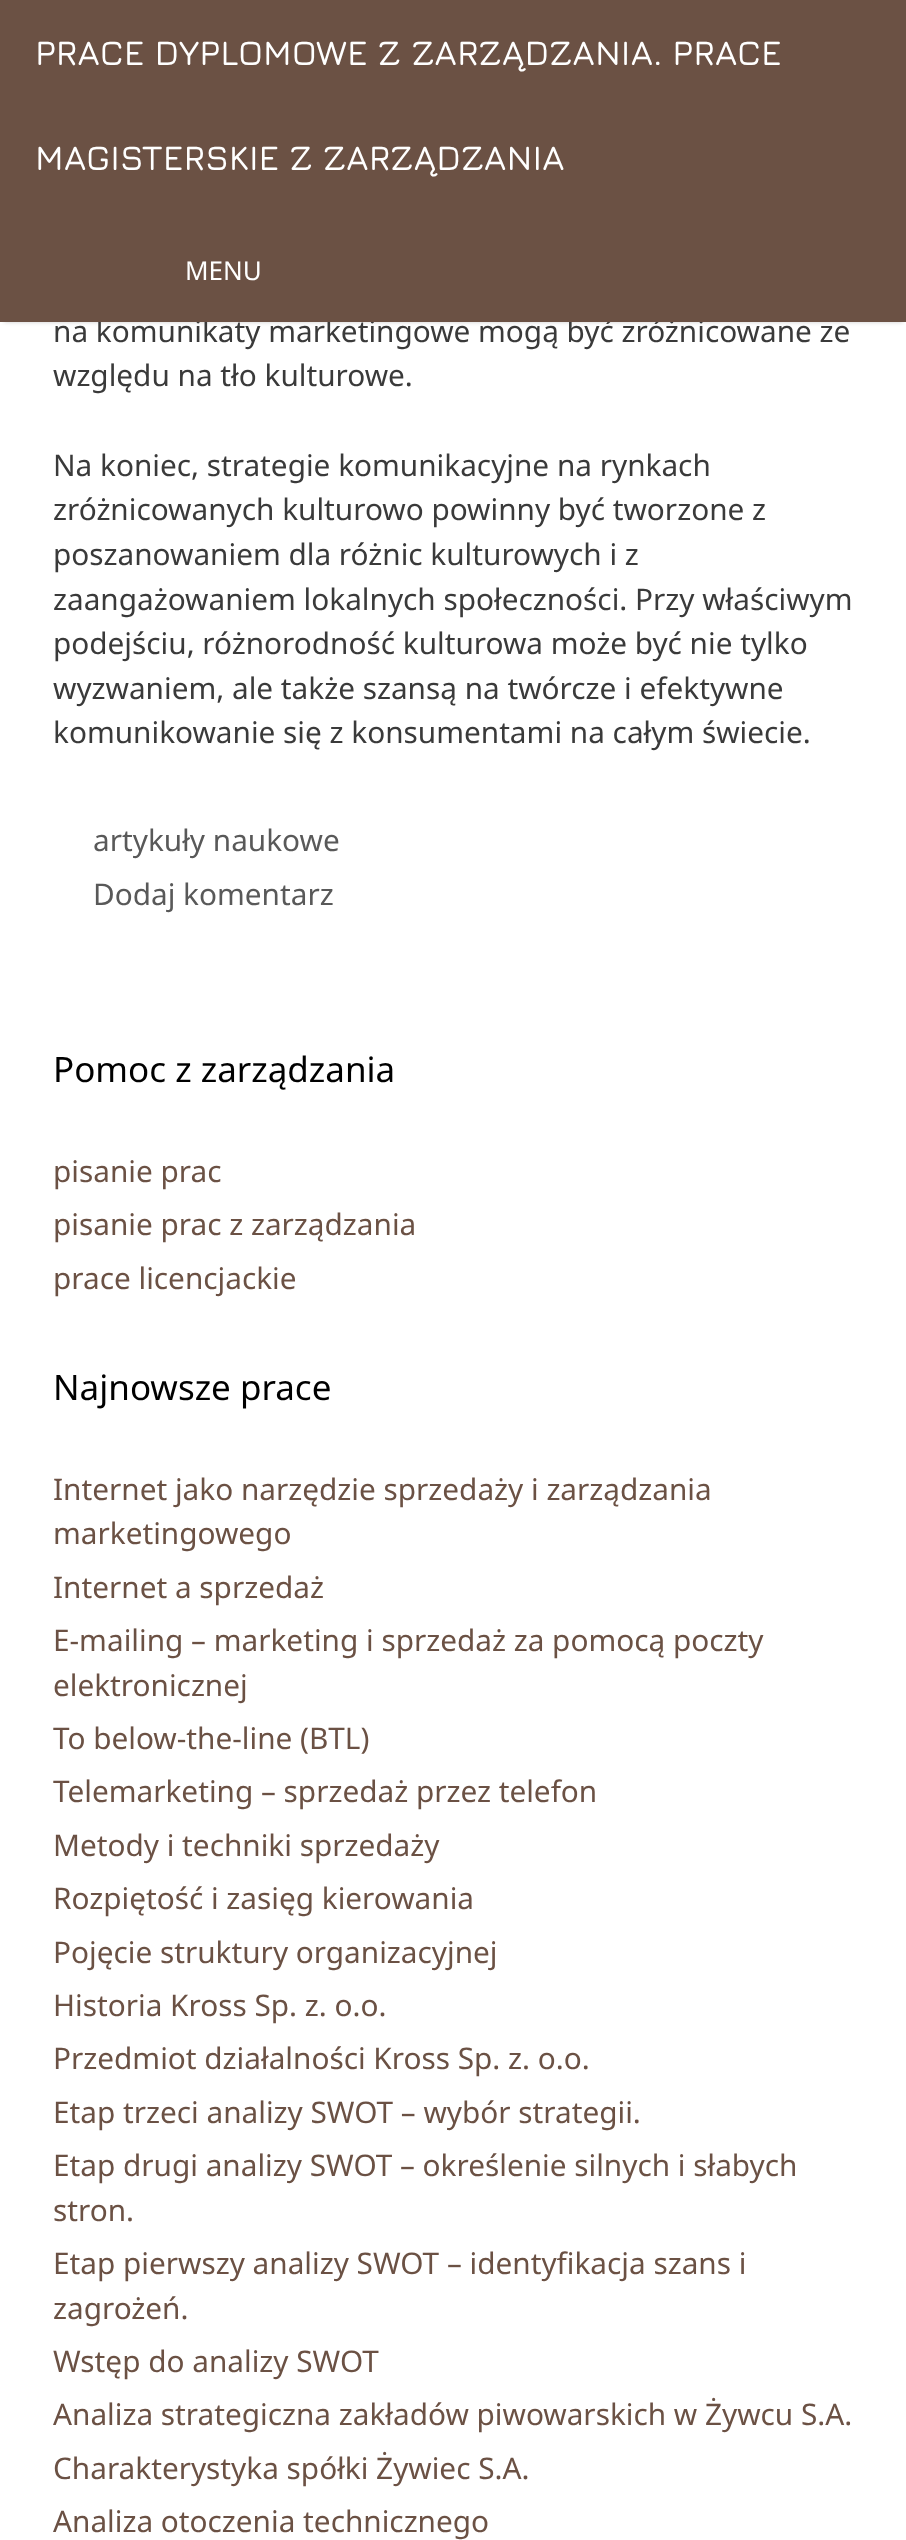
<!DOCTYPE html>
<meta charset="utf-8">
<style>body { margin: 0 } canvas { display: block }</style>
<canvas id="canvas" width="906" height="2540"></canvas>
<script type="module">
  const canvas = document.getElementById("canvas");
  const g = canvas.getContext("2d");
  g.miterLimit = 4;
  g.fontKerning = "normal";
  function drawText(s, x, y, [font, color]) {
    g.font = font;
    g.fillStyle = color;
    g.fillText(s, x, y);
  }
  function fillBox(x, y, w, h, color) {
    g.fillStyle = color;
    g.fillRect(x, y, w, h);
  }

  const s1 = ["29.75px Noto Sans", "#3A3A3A"];
  const s2 = ["600 35px Jura", "#FFFFFF"];
  const s3 = ["26px Noto Sans", "#FFFFFF"];
  const s4 = ["29.75px Noto Sans", "#595959"];
  const s5 = ["35px Noto Sans", "#000000"];
  const s6 = ["29.75px Noto Sans", "#6B5144"];

  fillBox(0, 0, 906, 2540, "#FFFFFF");
  g.fillStyle = "rgba(0, 0, 0, 0.2)";
  g.filter = "blur(2px)";
  g.beginPath();
  g.rect(4, 7, 899, 315);
  g.fill();
  g.filter = "none";
  drawText("na komunikaty marketingowe mogą być zróżnicowane ze", 53, 342, s1);
  fillBox(0, 0, 906, 322, "#6B5144");
  drawText("PRACE DYPLOMOWE Z ZARZĄDZANIA. PRACE", 35, 65, s2);
  drawText("MAGISTERSKIE Z ZARZĄDZANIA", 35, 170, s2);
  drawText("MENU", 185, 280, s3);
  drawText("względu na tło kulturowe.", 53, 386, s1);
  drawText("Na koniec, strategie komunikacyjne na rynkach", 53, 476, s1);
  drawText("zróżnicowanych kulturowo powinny być tworzone z", 53, 520, s1);
  drawText("poszanowaniem dla różnic kulturowych i z", 53, 565, s1);
  drawText("zaangażowaniem lokalnych społeczności. Przy właściwym", 53, 610, s1);
  drawText("podejściu, różnorodność kulturowa może być nie tylko", 53, 654, s1);
  drawText("wyzwaniem, ale także szansą na twórcze i efektywne", 53, 699, s1);
  drawText("komunikowanie się z konsumentami na całym świecie.", 53, 743, s1);
  drawText("artykuły naukowe", 93, 851, s4);
  drawText("Dodaj komentarz", 93, 905, s4);
  drawText("Pomoc z zarządzania", 53, 1082, s5);
  drawText("pisanie prac", 53, 1182, s6);
  drawText("pisanie prac z zarządzania", 53, 1235, s6);
  drawText("prace licencjackie", 53, 1289, s6);
  drawText("Najnowsze prace", 53, 1400, s5);
  drawText("Internet jako narzędzie sprzedaży i zarządzania", 53, 1500, s6);
  drawText("marketingowego", 53, 1544, s6);
  drawText("Internet a sprzedaż", 53, 1598, s6);
  drawText("E-mailing – marketing i sprzedaż za pomocą poczty", 53, 1651, s6);
  drawText("elektronicznej", 53, 1696, s6);
  drawText("To below-the-line (BTL)", 53, 1749, s6);
  drawText("Telemarketing – sprzedaż przez telefon", 53, 1802, s6);
  drawText("Metody i techniki sprzedaży", 53, 1856, s6);
  drawText("Rozpiętość i zasięg kierowania", 53, 1909, s6);
  drawText("Pojęcie struktury organizacyjnej", 53, 1963, s6);
  drawText("Historia Kross Sp. z. o.o.", 53, 2016, s6);
  drawText("Przedmiot działalności Kross Sp. z. o.o.", 53, 2069, s6);
  drawText("Etap trzeci analizy SWOT – wybór strategii.", 53, 2123, s6);
  drawText("Etap drugi analizy SWOT – określenie silnych i słabych", 53, 2176, s6);
  drawText("stron.", 53, 2221, s6);
  drawText("Etap pierwszy analizy SWOT – identyfikacja szans i", 53, 2274, s6);
  drawText("zagrożeń.", 53, 2319, s6);
  drawText("Wstęp do analizy SWOT", 53, 2372, s6);
  drawText("Analiza strategiczna zakładów piwowarskich w Żywcu S.A.", 53, 2425, s6);
  drawText("Charakterystyka spółki Żywiec S.A.", 53, 2479, s6);
  drawText("Analiza otoczenia technicznego", 53, 2532, s6);
</script>
